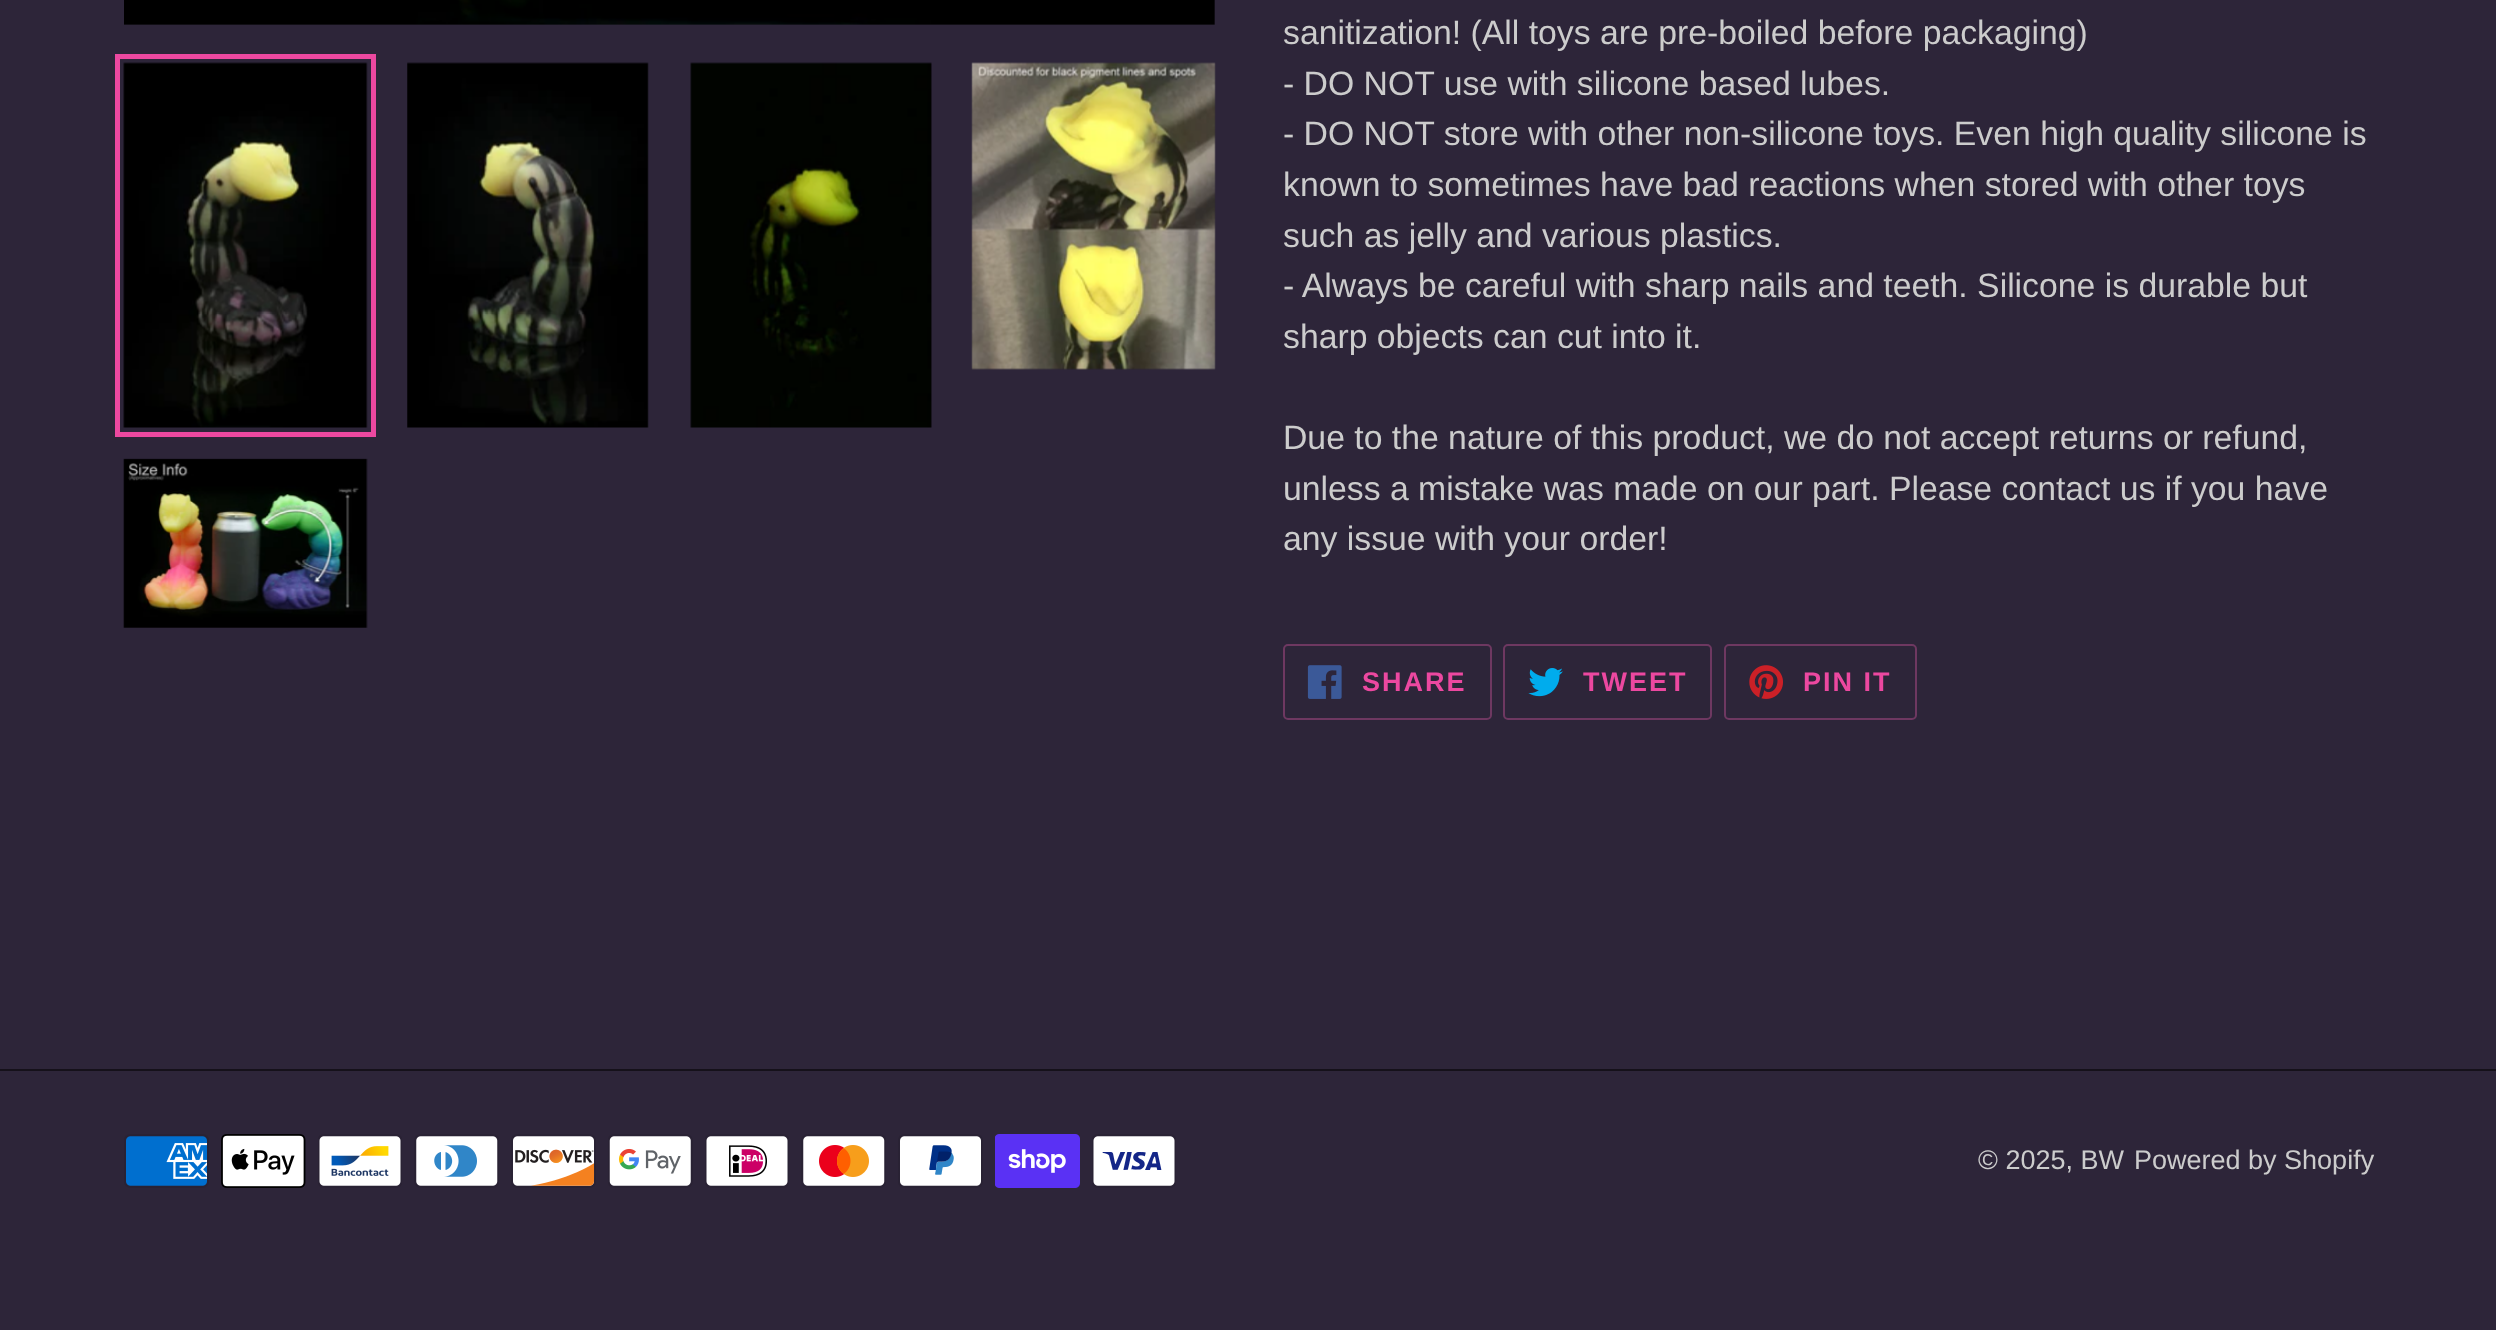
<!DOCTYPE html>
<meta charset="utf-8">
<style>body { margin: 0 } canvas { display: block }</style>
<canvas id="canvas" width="2496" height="1330"></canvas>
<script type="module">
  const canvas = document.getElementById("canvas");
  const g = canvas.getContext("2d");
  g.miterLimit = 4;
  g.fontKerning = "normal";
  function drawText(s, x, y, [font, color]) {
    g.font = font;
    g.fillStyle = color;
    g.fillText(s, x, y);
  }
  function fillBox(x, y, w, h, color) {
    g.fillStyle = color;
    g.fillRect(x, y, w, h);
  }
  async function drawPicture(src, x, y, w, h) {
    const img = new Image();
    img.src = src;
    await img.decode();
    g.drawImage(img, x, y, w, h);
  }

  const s1 = ["33.75px Liberation Sans", "#CCCCCC"];
  const s2 = ["bold 27px Liberation Sans", "#EC48A0"];
  const s3 = ["27px Liberation Sans", "#CCCCCC"];

  fillBox(0, 0, 2496, 1330, "#2D2539");
  await drawPicture("pic1.png", 124, 0, 1091, 25);
  g.strokeStyle = "#EC48A0";
  g.lineWidth = 5;
  g.strokeRect(117.5, 56.5, 256, 378);
  await drawPicture("pic2.png", 123, 62, 245, 366);
  await drawPicture("pic3.png", 407, 62, 242, 366);
  await drawPicture("pic4.png", 690, 62, 242, 366);
  await drawPicture("pic5.png", 971, 62, 245, 308);
  await drawPicture("pic6.png", 123, 458, 245, 170);
  drawText("sanitization! (All toys are pre-boiled before packaging)", 1283, 44, s1);
  drawText("- DO NOT use with silicone based lubes.", 1283, 95, s1);
  drawText("- DO NOT store with other non-silicone toys. Even high quality silicone is", 1283, 145, s1);
  drawText("known to sometimes have bad reactions when stored with other toys", 1283, 196, s1);
  drawText("such as jelly and various plastics.", 1283, 247, s1);
  drawText("- Always be careful with sharp nails and teeth. Silicone is durable but", 1283, 297, s1);
  drawText("sharp objects can cut into it.", 1283, 348, s1);
  drawText("Due to the nature of this product, we do not accept returns or refund,", 1283, 449, s1);
  drawText("unless a mistake was made on our part. Please contact us if you have", 1283, 500, s1);
  drawText("any issue with your order!", 1283, 550, s1);
  g.beginPath();
  g.roundRect(1284, 645, 207, 74, 4);
  g.strokeStyle = "#6E3861";
  g.lineWidth = 2;
  g.stroke();
  await drawPicture("pic7.png", 1307, 665, 35, 34);
  g.letterSpacing = "2px";
  drawText("SHARE", 1362, 691, s2);
  g.beginPath();
  g.roundRect(1504, 645, 207, 74, 4);
  g.stroke();
  await drawPicture("pic8.png", 1528, 668, 35, 29);
  drawText("TWEET", 1583, 691, s2);
  g.beginPath();
  g.roundRect(1725, 645, 191, 74, 4);
  g.stroke();
  await drawPicture("pic9.png", 1749, 665, 34, 34);
  drawText("PIN IT", 1803, 691, s2);
  fillBox(0, 1069, 2496, 2, "#15111A");
  await drawPicture("pic10.png", 124, 1134, 85, 54);
  await drawPicture("pic11.png", 221, 1134, 85, 54);
  await drawPicture("pic12.png", 318, 1134, 84, 54);
  await drawPicture("pic13.png", 414, 1134, 85, 54);
  await drawPicture("pic14.png", 511, 1134, 85, 54);
  await drawPicture("pic15.png", 608, 1134, 85, 54);
  await drawPicture("pic16.png", 705, 1134, 84, 54);
  await drawPicture("pic17.png", 801, 1134, 85, 54);
  await drawPicture("pic18.png", 898, 1134, 85, 54);
  await drawPicture("pic19.png", 995, 1134, 85, 54);
  await drawPicture("pic20.png", 1092, 1134, 84, 54);
  g.letterSpacing = "0px";
  drawText("© 2025, BW", 1978, 1169, s3);
  drawText("Powered by Shopify", 2134, 1169, s3);
</script>
